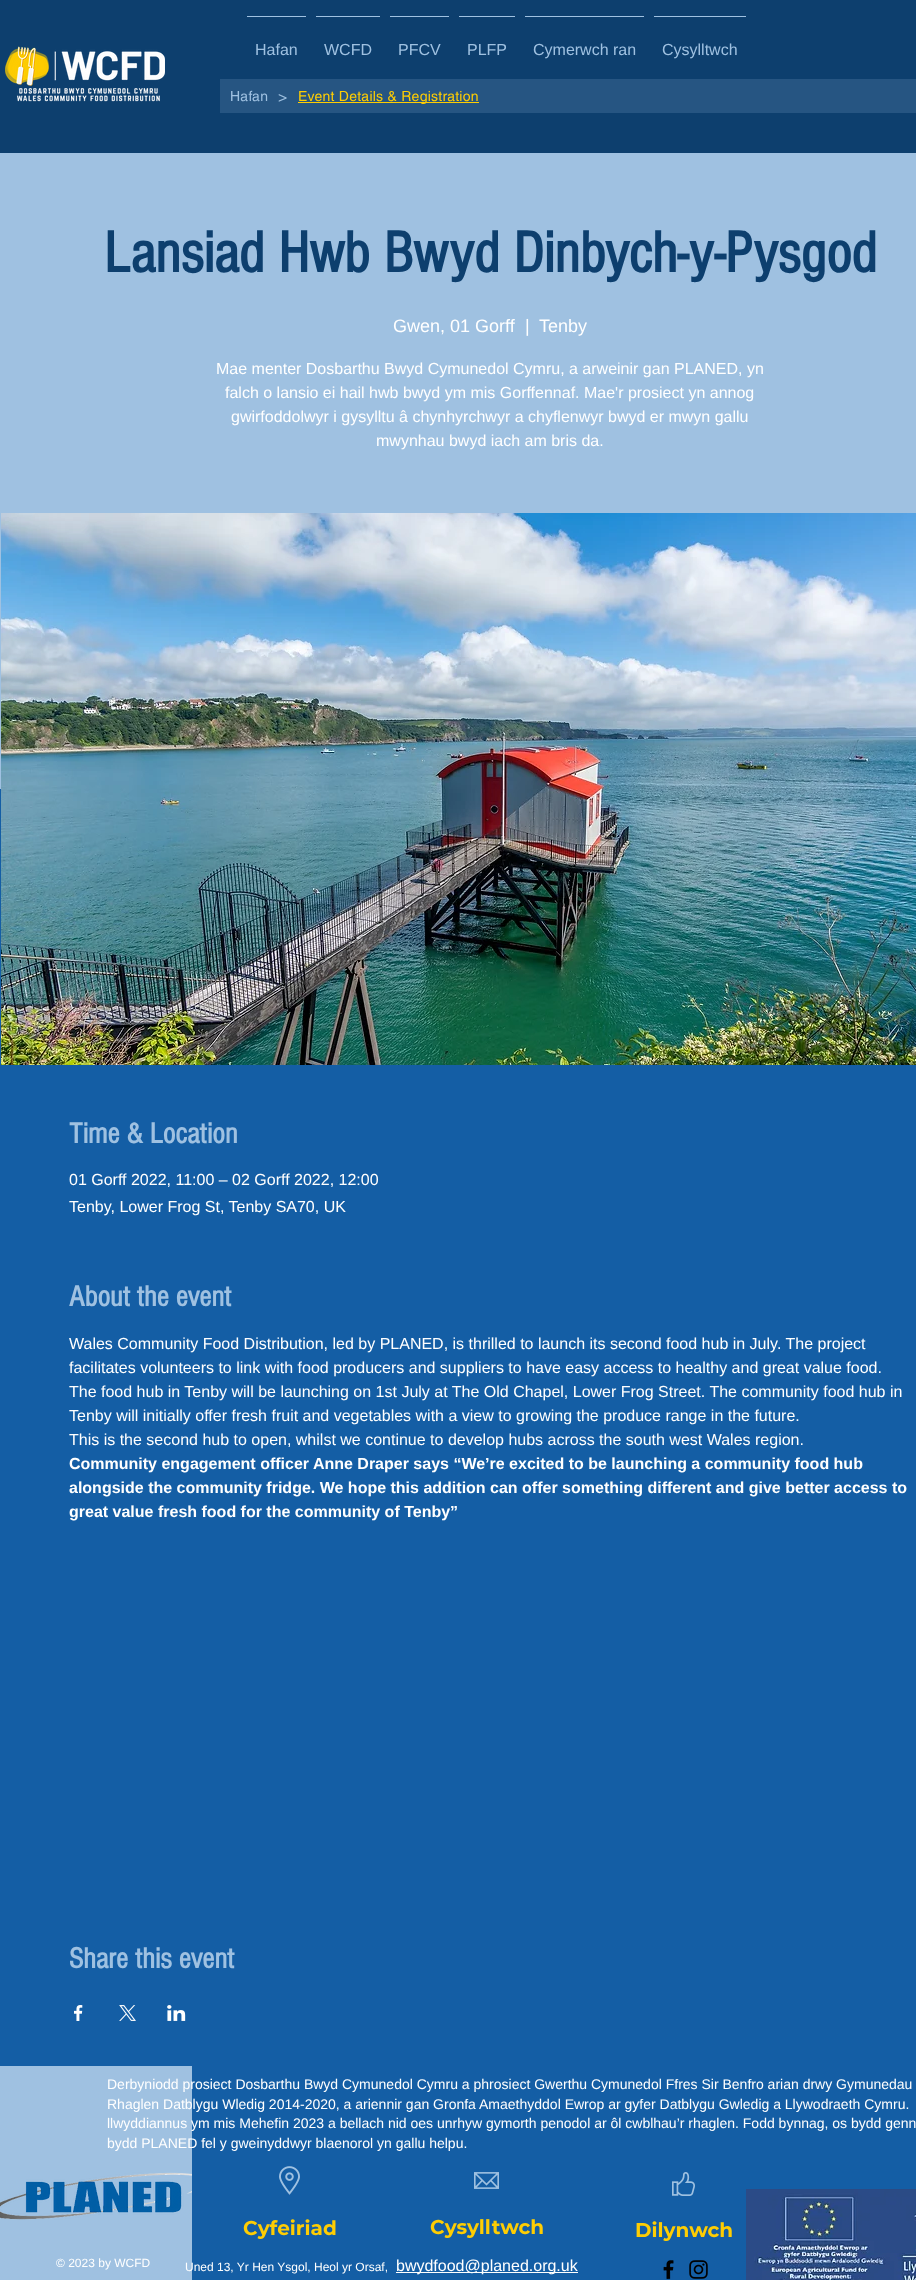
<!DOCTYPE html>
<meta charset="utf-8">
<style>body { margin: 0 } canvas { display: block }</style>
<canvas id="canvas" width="916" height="2280"></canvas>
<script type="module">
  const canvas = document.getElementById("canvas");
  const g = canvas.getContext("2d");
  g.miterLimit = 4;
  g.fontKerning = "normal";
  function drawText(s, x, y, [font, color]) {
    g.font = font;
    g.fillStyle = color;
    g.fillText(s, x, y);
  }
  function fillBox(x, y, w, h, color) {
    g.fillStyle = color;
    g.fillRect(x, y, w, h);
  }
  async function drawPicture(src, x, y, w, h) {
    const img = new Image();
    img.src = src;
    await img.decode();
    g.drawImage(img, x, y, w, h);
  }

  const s1 = ["16px Liberation Sans", "#9FC1E1"];
  const s2 = ["14px helvetica", "#9FC1E1"];
  const s3 = ["16px helvetica", "#9FC1E1"];
  const s4 = ["14px helvetica", "#FECD03"];
  const s5 = ["bold 60px 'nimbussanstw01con'", "#0D3F6E"];
  const s6 = ["18px Liberation Sans", "#FFFFFF"];
  const s7 = ["16px Liberation Sans", "#FFFFFF"];
  const s8 = ["bold 30px 'nimbussanstw01con'", "#9FC1E1"];
  const s9 = ["bold 16px Liberation Sans", "#FFFFFF"];
  const s10 = ["14px Liberation Sans", "#FFFFFF"];
  const s11 = ["bold 20px Montserrat", "#FECD03"];
  const s12 = ["12px Liberation Sans", "#FFFFFF"];

  fillBox(0, 0, 916, 2280, "#145EA5");
  fillBox(0, 0, 916, 153, "#0D3F6E");
  await drawPicture("pic1.png", 5, 46, 160, 56);
  fillBox(247, 16, 59, 1, "#9FC1E1");
  drawText("Hafan", 255, 55, s1);
  fillBox(316, 16, 64, 1, "#9FC1E1");
  drawText("WCFD", 324, 55, s1);
  fillBox(390, 16, 59, 1, "#9FC1E1");
  drawText("PFCV", 398, 55, s1);
  fillBox(459, 16, 56, 1, "#9FC1E1");
  drawText("PLFP", 467, 55, s1);
  fillBox(525, 16, 119, 1, "#9FC1E1");
  drawText("Cymerwch ran", 533, 55, s1);
  fillBox(654, 16, 92, 1, "#9FC1E1");
  drawText("Cysylltwch", 662, 55, s1);
  fillBox(220, 79, 696, 34, "#265582");
  g.letterSpacing = "0.25px";
  drawText("Hafan", 230, 101, s2);
  g.letterSpacing = "0px";
  drawText(">", 278, 102, s3);
  fillBox(298, 102, 181, 1, "#FECD03");
  g.letterSpacing = "0.25px";
  drawText("Event Details & Registration", 298, 101, s4);
  fillBox(0, 153, 916, 636, "#9FC1E1");
  g.letterSpacing = "0px";
  drawText("Lansiad Hwb Bwyd Dinbych-y-Pysgod", 104, 272, s5);
  drawText("Gwen, 01 Gorff", 393, 332, s6);
  drawText("|", 525, 332, s6);
  drawText("Tenby", 539, 332, s6);
  drawText("Mae menter Dosbarthu Bwyd Cymunedol Cymru, a arweinir gan PLANED, yn", 216, 374, s7);
  drawText("falch o lansio ei hail hwb bwyd ym mis Gorffennaf. Mae'r prosiect yn annog", 225, 398, s7);
  drawText("gwirfoddolwyr i gysylltu â chynhyrchwyr a chyflenwyr bwyd er mwyn gallu", 231, 422, s7);
  drawText("mwynhau bwyd iach am bris da.", 376, 446, s7);
  await drawPicture("pic2.png", 1, 513, 915, 552);
  drawText("Time & Location", 69, 1143, s8);
  drawText("01 Gorff 2022, 11:00 – 02 Gorff 2022, 12:00", 69, 1185, s7);
  drawText("Tenby, Lower Frog St, Tenby SA70, UK", 69, 1212, s7);
  drawText("About the event", 69, 1306, s8);
  drawText("Wales Community Food Distribution, led by PLANED, is thrilled to launch its second food hub in July. The project", 69, 1349, s7);
  drawText("facilitates volunteers to link with food producers and suppliers to have easy access to healthy and great value food.", 69, 1373, s7);
  drawText("The food hub in Tenby will be launching on 1st July at The Old Chapel, Lower Frog Street. The community food hub in", 69, 1397, s7);
  drawText("Tenby will initially offer fresh fruit and vegetables with a view to growing the produce range in the future.", 69, 1421, s7);
  drawText("This is the second hub to open, whilst we continue to develop hubs across the south west Wales region.", 69, 1445, s7);
  drawText("Community engagement officer Anne Draper says “We’re excited to be launching a community food hub", 69, 1469, s9);
  drawText("alongside the community fridge. We hope this addition can offer something different and give better access to", 69, 1493, s9);
  drawText("great value fresh food for the community of Tenby”", 69, 1517, s9);
  drawText("Share this event", 69, 1968, s8);
  await drawPicture("pic3.png", 74, 2005, 9, 16);
  await drawPicture("pic4.png", 119, 2005, 17, 16);
  await drawPicture("pic5.png", 167, 2005, 19, 16);
  fillBox(0, 2066, 192, 214, "#9FC1E1");
  drawText("Derbyniodd prosiect Dosbarthu Bwyd Cymunedol Cymru a phrosiect Gwerthu Cymunedol Ffres Sir Benfro arian drwy Gymunedau", 107, 2089, s10);
  drawText("Rhaglen Datblygu Wledig 2014-2020, a ariennir gan Gronfa Amaethyddol Ewrop ar gyfer Datblygu Gwledig a Llywodraeth Cymru.", 107, 2109, s10);
  drawText("llwyddiannus ym mis Mehefin 2023 a bellach nid oes unrhyw gymorth penodol ar ôl cwblhau’r rhaglen. Fodd bynnag, os bydd genn", 107, 2128, s10);
  drawText("bydd PLANED fel y gweinyddwyr blaenorol yn gallu helpu.", 107, 2148, s10);
  await drawPicture("pic6.png", 279, 2166, 21, 29);
  drawText("Cyfeiriad", 243, 2235, s11);
  drawText("Uned 13, Yr Hen Ysgol, Heol yr Orsaf,", 185, 2271, s12);
  await drawPicture("pic7.png", 474, 2172, 25, 17);
  drawText("Cysylltwch", 430, 2234, s11);
  fillBox(396, 2272, 182, 1, "#FFFFFF");
  drawText("bwydfood@planed.org.uk", 396, 2271, s7);
  await drawPicture("pic8.png", 672, 2172, 23, 24);
  drawText("Dilynwch", 635, 2237, s11);
  await drawPicture("pic9.png", 663, 2260, 11, 20);
  await drawPicture("pic10.png", 689, 2260, 19, 19);
  await drawPicture("pic11.png", 746, 2189, 170, 91);
  await drawPicture("pic12.png", 0, 2172, 192, 48);
  drawText("© 2023 by WCFD", 56, 2267, s12);
</script>
